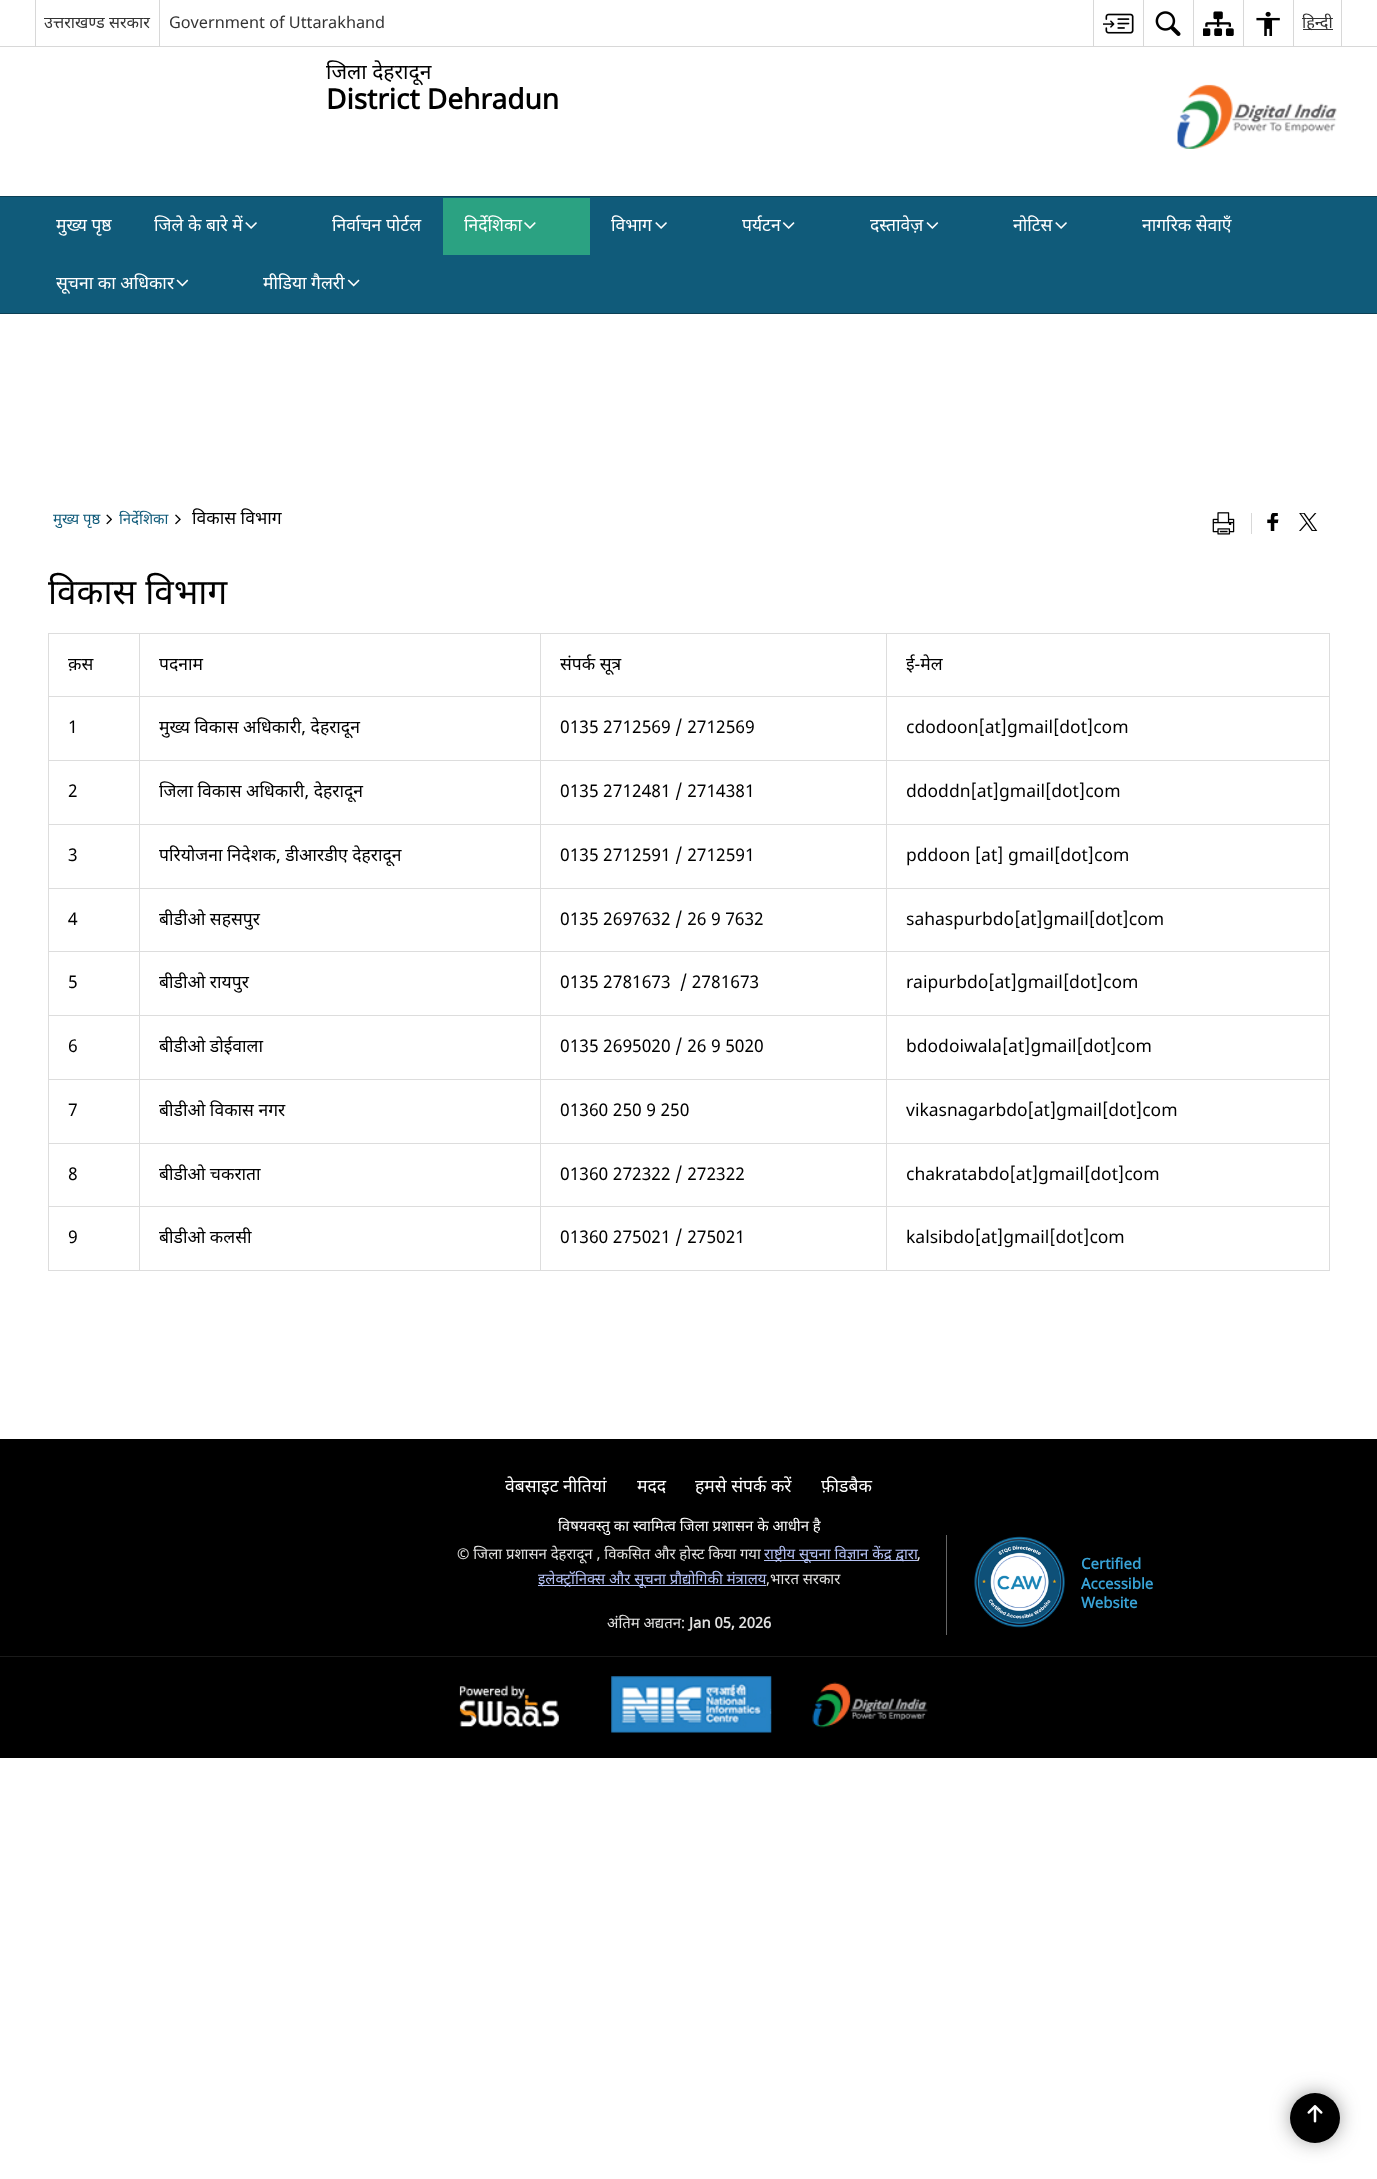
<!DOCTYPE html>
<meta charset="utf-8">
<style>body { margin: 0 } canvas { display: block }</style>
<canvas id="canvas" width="1377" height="2179"></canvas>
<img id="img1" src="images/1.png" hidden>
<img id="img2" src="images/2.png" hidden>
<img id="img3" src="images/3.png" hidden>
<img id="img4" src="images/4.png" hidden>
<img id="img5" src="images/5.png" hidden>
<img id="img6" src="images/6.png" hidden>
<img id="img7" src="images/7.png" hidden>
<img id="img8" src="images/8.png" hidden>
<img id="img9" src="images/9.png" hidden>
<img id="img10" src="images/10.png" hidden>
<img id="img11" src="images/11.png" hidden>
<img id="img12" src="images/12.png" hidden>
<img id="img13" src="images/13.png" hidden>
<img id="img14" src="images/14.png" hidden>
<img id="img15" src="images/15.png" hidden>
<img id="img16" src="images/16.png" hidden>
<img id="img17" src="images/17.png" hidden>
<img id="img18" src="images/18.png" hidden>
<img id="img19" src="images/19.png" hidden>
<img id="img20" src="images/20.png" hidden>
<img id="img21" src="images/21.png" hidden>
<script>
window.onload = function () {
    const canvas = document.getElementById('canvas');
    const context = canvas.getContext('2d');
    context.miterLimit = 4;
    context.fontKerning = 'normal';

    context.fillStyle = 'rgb(255, 255, 255)';
    context.fillRect(0, 0, 1377, 2179);
    context.fillStyle = 'rgb(216, 216, 216)';
    context.fillRect(0, 46, 1377, 1);
    context.fillRect(35, 0, 1, 46);
    context.fillRect(159, 0, 1, 46);
    context.fillRect(1093, 0, 1, 46);
    context.drawImage(document.getElementById('img1'), 1103, 13, 31, 21);
    context.fillRect(1143, 0, 1, 46);
    context.drawImage(document.getElementById('img2'), 1155, 11, 26, 25);
    context.fillRect(1193, 0, 1, 46);
    context.drawImage(document.getElementById('img3'), 1203, 11, 31, 25);
    context.fillRect(1243, 0, 1, 46);
    context.drawImage(document.getElementById('img4'), 1256, 11, 24, 25);
    context.fillRect(1341, 0, 1, 46);
    context.fillRect(1293, 0, 1, 46);
    context.fillStyle = 'rgb(51, 51, 51)';
    context.fillRect(1303, 29, 30, 1);
    context.drawImage(document.getElementById('img5'), 1177, 84, 160, 65);
    context.fillStyle = 'rgb(16, 91, 122)';
    context.fillRect(0, 197, 1377, 116);
    context.fillStyle = 'rgb(11, 64, 85)';
    context.fillRect(0, 196, 1377, 1);
    context.fillRect(0, 313, 1377, 1);
    context.drawImage(document.getElementById('img6'), 245, 222, 12, 7);
    context.fillStyle = 'rgb(43, 162, 130)';
    context.fillRect(443, 198, 147, 57);
    context.drawImage(document.getElementById('img7'), 524, 222, 12, 7);
    context.drawImage(document.getElementById('img6'), 655, 222, 12, 7);
    context.drawImage(document.getElementById('img8'), 782, 222, 13, 7);
    context.drawImage(document.getElementById('img9'), 926, 222, 13, 7);
    context.drawImage(document.getElementById('img6'), 1055, 222, 12, 7);
    context.drawImage(document.getElementById('img10'), 176, 279, 13, 8);
    context.drawImage(document.getElementById('img11'), 347, 279, 13, 8);
    context.drawImage(document.getElementById('img12'), 106, 514, 6, 11);
    context.drawImage(document.getElementById('img13'), 175, 514, 6, 11);
    context.drawImage(document.getElementById('img14'), 1212, 512, 23, 23);
    context.fillStyle = 'rgb(216, 216, 216)';
    context.fillRect(1251, 513, 1, 21);
    context.drawImage(document.getElementById('img15'), 1267, 513, 12, 18);
    context.drawImage(document.getElementById('img16'), 1299, 513, 19, 18);
    context.fillStyle = 'rgb(221, 221, 221)';
    context.fillRect(48, 633, 1282, 1);
    context.fillRect(1329, 633, 1, 638);
    context.fillRect(48, 1270, 1282, 1);
    context.fillRect(48, 633, 1, 638);
    context.fillRect(48, 696, 1282, 1);
    context.fillRect(48, 760, 1282, 1);
    context.fillRect(48, 824, 1282, 1);
    context.fillRect(48, 888, 1282, 1);
    context.fillRect(48, 951, 1282, 1);
    context.fillRect(48, 1015, 1282, 1);
    context.fillRect(48, 1079, 1282, 1);
    context.fillRect(48, 1143, 1282, 1);
    context.fillRect(48, 1206, 1282, 1);
    context.fillRect(139, 1206, 1, 65);
    context.fillRect(139, 1143, 1, 65);
    context.fillRect(139, 1079, 1, 65);
    context.fillRect(139, 1015, 1, 65);
    context.fillRect(139, 951, 1, 65);
    context.fillRect(139, 888, 1, 65);
    context.fillRect(139, 824, 1, 65);
    context.fillRect(139, 760, 1, 65);
    context.fillRect(139, 633, 1, 128);
    context.fillRect(540, 1206, 1, 65);
    context.fillRect(540, 1143, 1, 65);
    context.fillRect(540, 1079, 1, 65);
    context.fillRect(540, 1015, 1, 65);
    context.fillRect(540, 951, 1, 65);
    context.fillRect(540, 888, 1, 65);
    context.fillRect(540, 824, 1, 65);
    context.fillRect(540, 760, 1, 65);
    context.fillRect(540, 633, 1, 128);
    context.fillRect(886, 1206, 1, 65);
    context.fillRect(886, 1143, 1, 65);
    context.fillRect(886, 1079, 1, 65);
    context.fillRect(886, 1015, 1, 65);
    context.fillRect(886, 951, 1, 65);
    context.fillRect(886, 888, 1, 65);
    context.fillRect(886, 824, 1, 65);
    context.fillRect(886, 760, 1, 65);
    context.fillRect(886, 633, 1, 128);
    context.fillStyle = 'rgb(0, 0, 0)';
    context.fillRect(0, 1439, 1377, 319);
    context.fillStyle = 'rgb(180, 193, 245)';
    context.fillRect(764, 1560, 154, 1);
    context.fillRect(538, 1585, 228, 1);
    context.fillStyle = 'rgb(102, 102, 102)';
    context.fillRect(946, 1535, 1, 100);
    context.drawImage(document.getElementById('img17'), 974, 1536, 91, 92);
    context.fillStyle = 'rgb(26, 26, 26)';
    context.fillRect(0, 1656, 1377, 1);
    context.drawImage(document.getElementById('img18'), 459, 1685, 100, 42);
    context.drawImage(document.getElementById('img19'), 611, 1676, 161, 57);
    context.drawImage(document.getElementById('img20'), 812, 1682, 116, 46);
    context.fillStyle = 'rgb(60, 60, 60)';
    context.filter = 'blur(12px)';
    context.beginPath();
    context.roundRect(1296, 2099, 38, 37, 18.5);
    context.fill();
    context.filter = 'none';
    context.fillStyle = 'rgb(0, 0, 0)';
    context.beginPath();
    context.arc(1315, 2118, 25, 0, 2 * Math.PI);
    context.fill();
    context.drawImage(document.getElementById('img21'), 1307, 2105, 16, 18);
    context.font = '16.25px Noto Sans';
    context.fillStyle = 'rgb(51, 51, 51)';
    context.fillText('उत्तराखण्ड सरकार', 44, 28);
    context.font = '16.25px "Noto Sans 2"';
    context.fillText('Government of Uttarakhand', 169, 28);
    context.font = '16.25px Noto Sans';
    context.fillText('हिन्दी', 1302, 28);
    context.font = '21px Noto Sans';
    context.fillStyle = 'rgb(0, 0, 0)';
    context.fillText('जिला देहरादून', 326, 79);
    context.font = 'bold 28px Noto Sans';
    context.fillText('District Dehradun', 326, 109);
    context.font = '17.5px Noto Sans';
    context.fillStyle = 'rgb(255, 255, 255)';
    context.fillText('मुख्य पृष्ठ', 56, 231);
    context.fillText('जिले के बारे में', 154, 231);
    context.fillText('निर्वाचन पोर्टल', 332, 231);
    context.fillText('निर्देशिका', 464, 231);
    context.fillText('विभाग', 611, 231);
    context.fillText('पर्यटन', 742, 231);
    context.fillText('दस्तावेज़', 870, 231);
    context.fillText('नोटिस', 1013, 231);
    context.fillText('नागरिक सेवाएँ', 1142, 231);
    context.fillText('सूचना का अधिकार', 56, 289);
    context.fillText('मीडिया गैलरी', 263, 289);
    context.font = '14.9px Noto Sans';
    context.fillStyle = 'rgb(16, 91, 122)';
    context.fillText('मुख्य पृष्ठ', 53, 524);
    context.fillText('निर्देशिका', 119, 524);
    context.font = '17.5px Noto Sans';
    context.fillStyle = 'rgb(0, 0, 0)';
    context.fillText('विकास विभाग', 192, 524);
    context.font = '35px Noto Sans';
    context.fillText('विकास विभाग', 48, 604);
    context.font = '17.5px Noto Sans';
    context.fillText('क़स', 68, 670);
    context.fillText('पदनाम', 159, 670);
    context.fillText('संपर्क सूत्र', 560, 670);
    context.fillText('ई-मेल', 906, 670);
    context.font = '17.5px "Noto Sans 2"';
    context.fillText('1', 68, 733);
    context.font = '17.5px Noto Sans';
    context.fillText('मुख्य विकास अधिकारी, देहरादून', 159, 733);
    context.font = '17.5px "Noto Sans 2"';
    context.fillText('0135 2712569 / 2712569', 560, 733);
    context.fillText('cdodoon[at]gmail[dot]com', 906, 733);
    context.fillText('2', 68, 797);
    context.font = '17.5px Noto Sans';
    context.fillText('जिला विकास अधिकारी, देहरादून', 159, 797);
    context.font = '17.5px "Noto Sans 2"';
    context.fillText('0135 2712481 / 2714381', 560, 797);
    context.fillText('ddoddn[at]gmail[dot]com', 906, 797);
    context.fillText('3', 68, 861);
    context.font = '17.5px Noto Sans';
    context.fillText('परियोजना निदेशक, डीआरडीए देहरादून', 159, 861);
    context.font = '17.5px "Noto Sans 2"';
    context.fillText('0135 2712591 / 2712591', 560, 861);
    context.fillText('pddoon [at] gmail[dot]com', 906, 861);
    context.fillText('4', 68, 925);
    context.font = '17.5px Noto Sans';
    context.fillText('बीडीओ सहसपुर', 159, 925);
    context.font = '17.5px "Noto Sans 2"';
    context.fillText('0135 2697632 / 26 9 7632', 560, 925);
    context.fillText('sahaspurbdo[at]gmail[dot]com', 906, 925);
    context.fillText('5', 68, 988);
    context.font = '17.5px Noto Sans';
    context.fillText('बीडीओ रायपुर', 159, 988);
    context.font = '17.5px "Noto Sans 2"';
    context.fillText('0135 2781673  / 2781673', 560, 988);
    context.fillText('raipurbdo[at]gmail[dot]com', 906, 988);
    context.fillText('6', 68, 1052);
    context.font = '17.5px Noto Sans';
    context.fillText('बीडीओ डोईवाला', 159, 1052);
    context.font = '17.5px "Noto Sans 2"';
    context.fillText('0135 2695020 / 26 9 5020', 560, 1052);
    context.fillText('bdodoiwala[at]gmail[dot]com', 906, 1052);
    context.fillText('7', 68, 1116);
    context.font = '17.5px Noto Sans';
    context.fillText('बीडीओ विकास नगर', 159, 1116);
    context.font = '17.5px "Noto Sans 2"';
    context.fillText('01360 250 9 250', 560, 1116);
    context.fillText('vikasnagarbdo[at]gmail[dot]com', 906, 1116);
    context.fillText('8', 68, 1180);
    context.font = '17.5px Noto Sans';
    context.fillText('बीडीओ चकराता', 159, 1180);
    context.font = '17.5px "Noto Sans 2"';
    context.fillText('01360 272322 / 272322', 560, 1180);
    context.fillText('chakratabdo[at]gmail[dot]com', 906, 1180);
    context.fillText('9', 68, 1243);
    context.font = '17.5px Noto Sans';
    context.fillText('बीडीओ कलसी', 159, 1243);
    context.font = '17.5px "Noto Sans 2"';
    context.fillText('01360 275021 / 275021', 560, 1243);
    context.fillText('kalsibdo[at]gmail[dot]com', 906, 1243);
    context.font = '17.5px Noto Sans';
    context.fillStyle = 'rgb(255, 255, 255)';
    context.fillText('वेबसाइट नीतियां', 505, 1492);
    context.fillText('मदद', 637, 1492);
    context.fillText('हमसे संपर्क करें', 695, 1492);
    context.fillText('फ़ीडबैक', 821, 1492);
    context.font = '14.9px Noto Sans';
    context.fillText('विषयवस्तु का स्वामित्व जिला प्रशासन के आधीन है', 558, 1531);
    context.fillStyle = 'rgb(226, 226, 225)';
    context.fillText('© जिला प्रशासन देहरादून , विकसित और होस्ट किया गया', 457, 1559);
    context.fillStyle = 'rgb(180, 193, 245)';
    context.fillText('राष्ट्रीय सूचना विज्ञान केंद्र द्वारा', 764, 1559);
    context.font = '14.9px "Noto Sans 2"';
    context.fillStyle = 'rgb(226, 226, 225)';
    context.fillText(',', 917, 1559);
    context.font = '14.9px Noto Sans';
    context.fillStyle = 'rgb(180, 193, 245)';
    context.fillText('इलेक्ट्रॉनिक्स और सूचना प्रौद्योगिकी मंत्रालय', 538, 1584);
    context.fillStyle = 'rgb(226, 226, 225)';
    context.fillText(',भारत सरकार', 766, 1584);
    context.font = 'bold 15px Noto Sans';
    context.fillStyle = 'rgb(56, 163, 215)';
    context.fillText('Certified', 1081, 1569);
    context.fillText('Accessible', 1081, 1589);
    context.fillText('Website', 1081, 1608);
    context.font = '14.9px Noto Sans';
    context.fillStyle = 'rgb(226, 226, 225)';
    context.fillText('अंतिम अद्यतन:', 607, 1628);
    context.font = 'bold 14.9px Noto Sans';
    context.fillText('Jan 05, 2026', 689, 1628);
};
</script>
